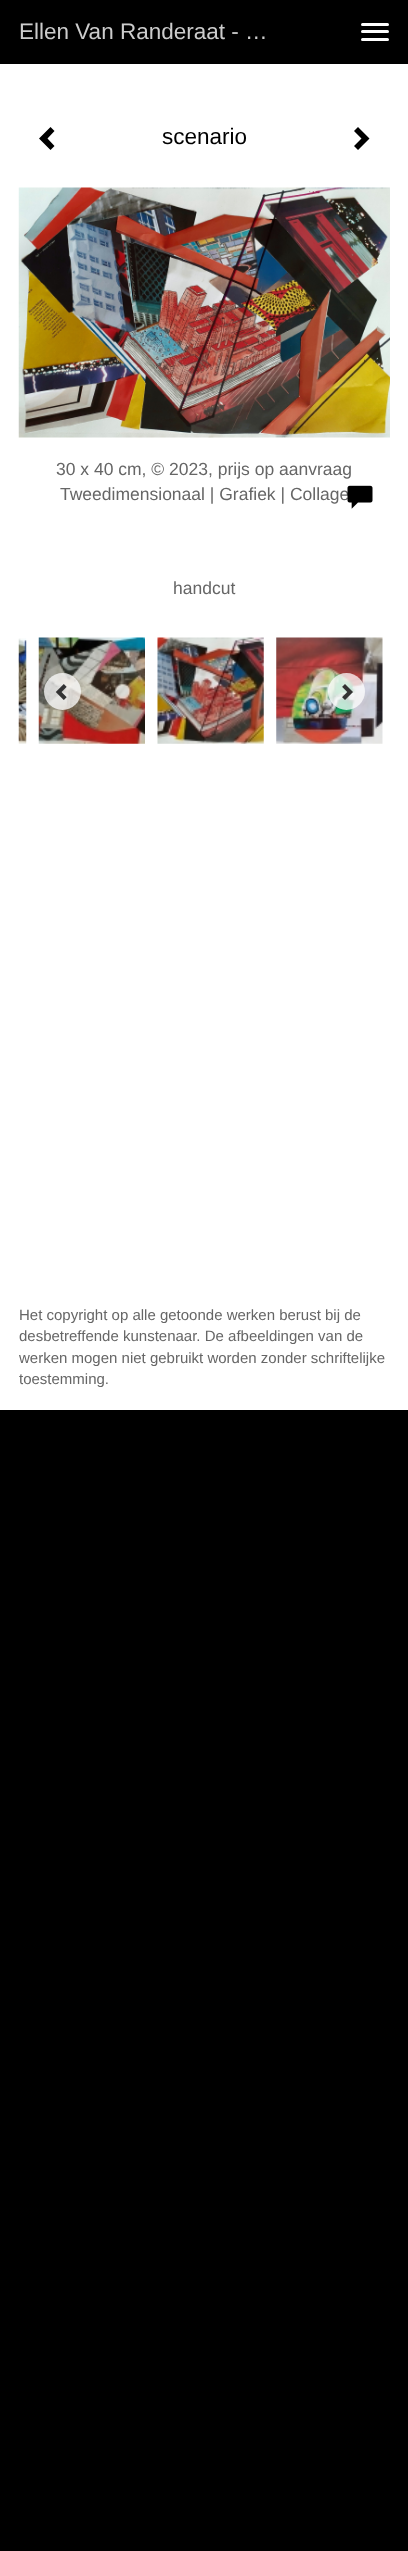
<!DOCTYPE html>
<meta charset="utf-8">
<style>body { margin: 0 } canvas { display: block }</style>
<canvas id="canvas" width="408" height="2551"></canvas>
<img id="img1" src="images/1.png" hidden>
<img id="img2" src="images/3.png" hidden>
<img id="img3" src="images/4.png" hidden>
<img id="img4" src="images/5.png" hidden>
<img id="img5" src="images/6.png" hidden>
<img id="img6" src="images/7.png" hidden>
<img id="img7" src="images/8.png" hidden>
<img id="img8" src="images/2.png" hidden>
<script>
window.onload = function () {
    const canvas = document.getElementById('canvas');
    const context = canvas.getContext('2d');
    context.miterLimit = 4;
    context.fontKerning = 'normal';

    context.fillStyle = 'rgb(0, 0, 0)';
    context.fillRect(0, 0, 408, 2551);
    context.fillStyle = 'rgb(255, 255, 255)';
    context.fillRect(0, 64, 408, 1346);
    context.beginPath();
    context.roundRect(361, 23, 28, 3, 1.5);
    context.fill();
    context.beginPath();
    context.roundRect(361, 30, 28, 3, 1.5);
    context.fill();
    context.beginPath();
    context.roundRect(361, 38, 28, 3, 1.5);
    context.fill();
    context.fillStyle = 'rgb(0, 0, 0)';
    context.beginPath();
    context.moveTo(54.5, 131);
    context.lineTo(47.5, 138.5);
    context.lineTo(54.5, 146);
    context.lineTo(50.5, 150);
    context.lineTo(39, 138.5);
    context.lineTo(50.5, 127);
    context.closePath();
    context.fill();
    context.beginPath();
    context.moveTo(369.5, 138.5);
    context.lineTo(358, 150);
    context.lineTo(354, 146);
    context.lineTo(361.5, 138.5);
    context.lineTo(354, 131);
    context.lineTo(358, 127);
    context.closePath();
    context.fill();
    context.drawImage(document.getElementById('img1'), 18, 187, 372, 251);
    context.drawImage(document.getElementById('img2'), 18, 638, 9, 106);
    context.drawImage(document.getElementById('img3'), 38, 637, 107, 107);
    context.drawImage(document.getElementById('img4'), 157, 637, 107, 107);
    context.drawImage(document.getElementById('img5'), 276, 637, 107, 107);
    context.fillStyle = 'rgba(255, 255, 255, 0.75)';
    context.beginPath();
    context.arc(62.5, 691.5, 18.5, 0, 2 * Math.PI);
    context.fill();
    context.drawImage(document.getElementById('img6'), 55, 684, 12, 16);
    context.beginPath();
    context.arc(346.5, 691.5, 18.5, 0, 2 * Math.PI);
    context.fill();
    context.drawImage(document.getElementById('img7'), 342, 684, 11, 16);
    context.font = '22.5px Liberation Sans';
    context.fillStyle = 'rgb(204, 204, 204)';
    context.fillText('Ellen Van Randeraat - …', 19, 39);
    context.fillStyle = 'rgb(0, 0, 0)';
    context.fillText('scenario', 162, 144);
    context.font = '17.5px Liberation Sans';
    context.fillStyle = 'rgb(102, 102, 102)';
    context.fillText('30 x 40 cm, © 2023, prijs op aanvraag', 56, 475);
    context.fillText('Tweedimensionaal | Grafiek | Collage', 60, 500);
    context.drawImage(document.getElementById('img8'), 347, 485, 26, 24);
    context.fillText('handcut', 173, 594);
    context.font = '15px Liberation Sans';
    context.fillText('Het copyright op alle getoonde werken berust bij de', 19, 1320);
    context.fillText('desbetreffende kunstenaar. De afbeeldingen van de', 19, 1341);
    context.fillText('werken mogen niet gebruikt worden zonder schriftelijke', 19, 1363);
    context.fillText('toestemming.', 19, 1384);
};
</script>
